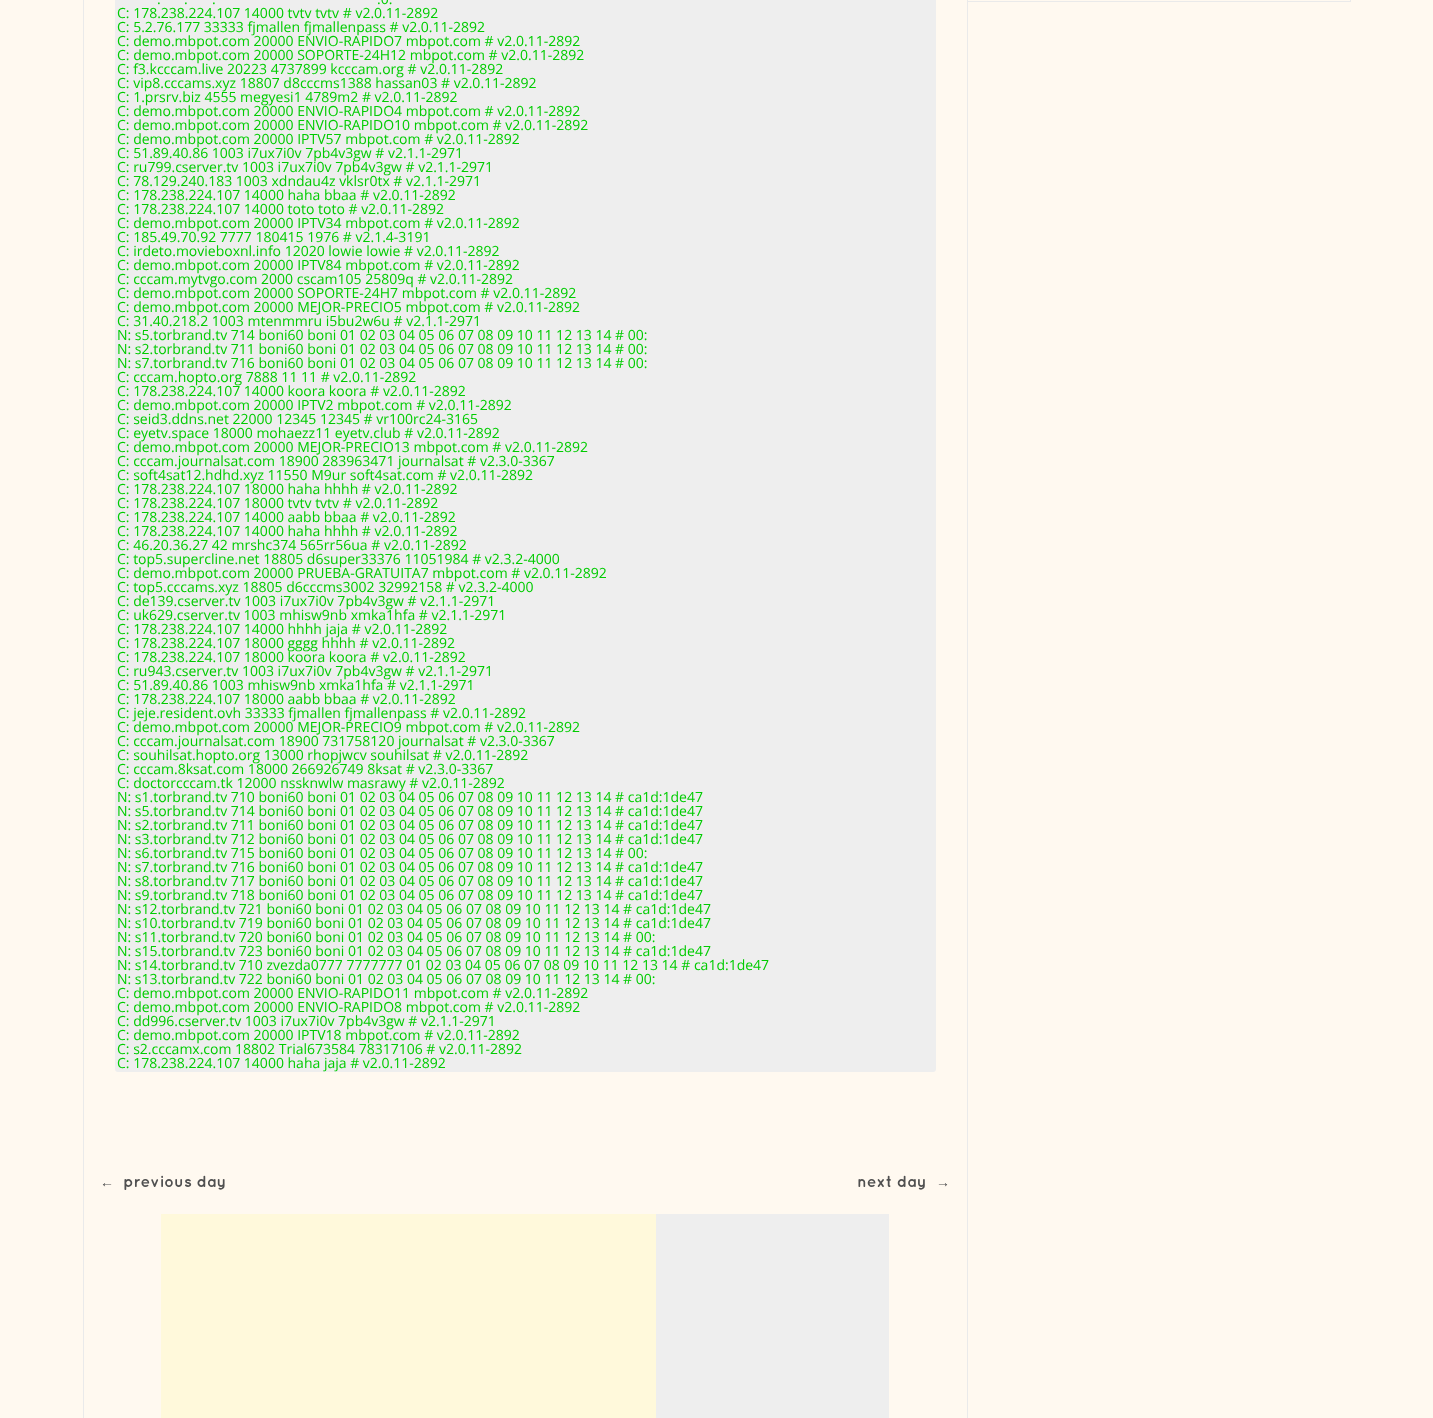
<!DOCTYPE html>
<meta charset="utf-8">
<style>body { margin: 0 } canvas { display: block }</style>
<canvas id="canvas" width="1433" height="1418"></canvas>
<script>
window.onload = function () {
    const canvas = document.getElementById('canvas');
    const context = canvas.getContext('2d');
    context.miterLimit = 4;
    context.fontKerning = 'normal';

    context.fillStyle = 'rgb(255, 249, 240)';
    context.fillRect(0, 0, 1433, 1418);
    context.fillStyle = 'rgb(234, 234, 234)';
    context.fillRect(967, 0, 1, 1418);
    context.fillRect(83, 0, 1, 1418);
    context.fillStyle = 'rgb(238, 238, 238)';
    context.beginPath();
    context.roundRect(116, -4, 819, 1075, 2);
    context.fill();
    context.strokeStyle = 'rgb(238, 238, 238)';
    context.lineWidth = 2;
    context.stroke();
    context.fillRect(656, 1214, 233, 204);
    context.fillStyle = 'rgb(255, 249, 219)';
    context.fillRect(161, 1214, 495, 204);
    context.fillStyle = 'rgb(234, 234, 234)';
    context.fillRect(1350, 0, 1, 2);
    context.fillRect(968, 1, 383, 1);
    context.font = '14px Open Sans';
    context.fillStyle = 'rgb(0, 204, 0)';
    context.fillText('.', 157, 4);
    context.fillText('.', 184, 4);
    context.fillText('.', 212, 4);
    context.fillText('.0.', 377, 4);
    context.fillText('C: 178.238.224.107 14000 tvtv tvtv # v2.0.11-2892', 117, 18);
    context.fillText('C: 5.2.76.177 33333 fjmallen fjmallenpass # v2.0.11-2892', 117, 32);
    context.fillText('C: demo.mbpot.com 20000 ENVIO-RAPIDO7 mbpot.com # v2.0.11-2892', 117, 46);
    context.fillText('C: demo.mbpot.com 20000 SOPORTE-24H12 mbpot.com # v2.0.11-2892', 117, 60);
    context.fillText('C: f3.kcccam.live 20223 4737899 kcccam.org # v2.0.11-2892', 117, 74);
    context.fillText('C: vip8.cccams.xyz 18807 d8cccms1388 hassan03 # v2.0.11-2892', 117, 88);
    context.fillText('C: 1.prsrv.biz 4555 megyesi1 4789m2 # v2.0.11-2892', 117, 102);
    context.fillText('C: demo.mbpot.com 20000 ENVIO-RAPIDO4 mbpot.com # v2.0.11-2892', 117, 116);
    context.fillText('C: demo.mbpot.com 20000 ENVIO-RAPIDO10 mbpot.com # v2.0.11-2892', 117, 130);
    context.fillText('C: demo.mbpot.com 20000 IPTV57 mbpot.com # v2.0.11-2892', 117, 144);
    context.fillText('C: 51.89.40.86 1003 i7ux7i0v 7pb4v3gw # v2.1.1-2971', 117, 158);
    context.fillText('C: ru799.cserver.tv 1003 i7ux7i0v 7pb4v3gw # v2.1.1-2971', 117, 172);
    context.fillText('C: 78.129.240.183 1003 xdndau4z vklsr0tx # v2.1.1-2971', 117, 186);
    context.fillText('C: 178.238.224.107 14000 haha bbaa # v2.0.11-2892', 117, 200);
    context.fillText('C: 178.238.224.107 14000 toto toto # v2.0.11-2892', 117, 214);
    context.fillText('C: demo.mbpot.com 20000 IPTV34 mbpot.com # v2.0.11-2892', 117, 228);
    context.fillText('C: 185.49.70.92 7777 180415 1976 # v2.1.4-3191', 117, 242);
    context.fillText('C: irdeto.movieboxnl.info 12020 lowie lowie # v2.0.11-2892', 117, 256);
    context.fillText('C: demo.mbpot.com 20000 IPTV84 mbpot.com # v2.0.11-2892', 117, 270);
    context.fillText('C: cccam.mytvgo.com 2000 cscam105 25809q # v2.0.11-2892', 117, 284);
    context.fillText('C: demo.mbpot.com 20000 SOPORTE-24H7 mbpot.com # v2.0.11-2892', 117, 298);
    context.fillText('C: demo.mbpot.com 20000 MEJOR-PRECIO5 mbpot.com # v2.0.11-2892', 117, 312);
    context.fillText('C: 31.40.218.2 1003 mtenmmru i5bu2w6u # v2.1.1-2971', 117, 326);
    context.fillText('N: s5.torbrand.tv 714 boni60 boni 01 02 03 04 05 06 07 08 09 10 11 12 13 14 # 00:', 117, 340);
    context.fillText('N: s2.torbrand.tv 711 boni60 boni 01 02 03 04 05 06 07 08 09 10 11 12 13 14 # 00:', 117, 354);
    context.fillText('N: s7.torbrand.tv 716 boni60 boni 01 02 03 04 05 06 07 08 09 10 11 12 13 14 # 00:', 117, 368);
    context.fillText('C: cccam.hopto.org 7888 11 11 # v2.0.11-2892', 117, 382);
    context.fillText('C: 178.238.224.107 14000 koora koora # v2.0.11-2892', 117, 396);
    context.fillText('C: demo.mbpot.com 20000 IPTV2 mbpot.com # v2.0.11-2892', 117, 410);
    context.fillText('C: seid3.ddns.net 22000 12345 12345 # vr100rc24-3165', 117, 424);
    context.fillText('C: eyetv.space 18000 mohaezz11 eyetv.club # v2.0.11-2892', 117, 438);
    context.fillText('C: demo.mbpot.com 20000 MEJOR-PRECIO13 mbpot.com # v2.0.11-2892', 117, 452);
    context.fillText('C: cccam.journalsat.com 18900 283963471 journalsat # v2.3.0-3367', 117, 466);
    context.fillText('C: soft4sat12.hdhd.xyz 11550 M9ur soft4sat.com # v2.0.11-2892', 117, 480);
    context.fillText('C: 178.238.224.107 18000 haha hhhh # v2.0.11-2892', 117, 494);
    context.fillText('C: 178.238.224.107 18000 tvtv tvtv # v2.0.11-2892', 117, 508);
    context.fillText('C: 178.238.224.107 14000 aabb bbaa # v2.0.11-2892', 117, 522);
    context.fillText('C: 178.238.224.107 14000 haha hhhh # v2.0.11-2892', 117, 536);
    context.fillText('C: 46.20.36.27 42 mrshc374 565rr56ua # v2.0.11-2892', 117, 550);
    context.fillText('C: top5.supercline.net 18805 d6super33376 11051984 # v2.3.2-4000', 117, 564);
    context.fillText('C: demo.mbpot.com 20000 PRUEBA-GRATUITA7 mbpot.com # v2.0.11-2892', 117, 578);
    context.fillText('C: top5.cccams.xyz 18805 d6cccms3002 32992158 # v2.3.2-4000', 117, 592);
    context.fillText('C: de139.cserver.tv 1003 i7ux7i0v 7pb4v3gw # v2.1.1-2971', 117, 606);
    context.fillText('C: uk629.cserver.tv 1003 mhisw9nb xmka1hfa # v2.1.1-2971', 117, 620);
    context.fillText('C: 178.238.224.107 14000 hhhh jaja # v2.0.11-2892', 117, 634);
    context.fillText('C: 178.238.224.107 18000 gggg hhhh # v2.0.11-2892', 117, 648);
    context.fillText('C: 178.238.224.107 18000 koora koora # v2.0.11-2892', 117, 662);
    context.fillText('C: ru943.cserver.tv 1003 i7ux7i0v 7pb4v3gw # v2.1.1-2971', 117, 676);
    context.fillText('C: 51.89.40.86 1003 mhisw9nb xmka1hfa # v2.1.1-2971', 117, 690);
    context.fillText('C: 178.238.224.107 18000 aabb bbaa # v2.0.11-2892', 117, 704);
    context.fillText('C: jeje.resident.ovh 33333 fjmallen fjmallenpass # v2.0.11-2892', 117, 718);
    context.fillText('C: demo.mbpot.com 20000 MEJOR-PRECIO9 mbpot.com # v2.0.11-2892', 117, 732);
    context.fillText('C: cccam.journalsat.com 18900 731758120 journalsat # v2.3.0-3367', 117, 746);
    context.fillText('C: souhilsat.hopto.org 13000 rhopjwcv souhilsat # v2.0.11-2892', 117, 760);
    context.fillText('C: cccam.8ksat.com 18000 266926749 8ksat # v2.3.0-3367', 117, 774);
    context.fillText('C: doctorcccam.tk 12000 nssknwlw masrawy # v2.0.11-2892', 117, 788);
    context.fillText('N: s1.torbrand.tv 710 boni60 boni 01 02 03 04 05 06 07 08 09 10 11 12 13 14 # ca1d:1de47', 117, 802);
    context.fillText('N: s5.torbrand.tv 714 boni60 boni 01 02 03 04 05 06 07 08 09 10 11 12 13 14 # ca1d:1de47', 117, 816);
    context.fillText('N: s2.torbrand.tv 711 boni60 boni 01 02 03 04 05 06 07 08 09 10 11 12 13 14 # ca1d:1de47', 117, 830);
    context.fillText('N: s3.torbrand.tv 712 boni60 boni 01 02 03 04 05 06 07 08 09 10 11 12 13 14 # ca1d:1de47', 117, 844);
    context.fillText('N: s6.torbrand.tv 715 boni60 boni 01 02 03 04 05 06 07 08 09 10 11 12 13 14 # 00:', 117, 858);
    context.fillText('N: s7.torbrand.tv 716 boni60 boni 01 02 03 04 05 06 07 08 09 10 11 12 13 14 # ca1d:1de47', 117, 872);
    context.fillText('N: s8.torbrand.tv 717 boni60 boni 01 02 03 04 05 06 07 08 09 10 11 12 13 14 # ca1d:1de47', 117, 886);
    context.fillText('N: s9.torbrand.tv 718 boni60 boni 01 02 03 04 05 06 07 08 09 10 11 12 13 14 # ca1d:1de47', 117, 900);
    context.fillText('N: s12.torbrand.tv 721 boni60 boni 01 02 03 04 05 06 07 08 09 10 11 12 13 14 # ca1d:1de47', 117, 914);
    context.fillText('N: s10.torbrand.tv 719 boni60 boni 01 02 03 04 05 06 07 08 09 10 11 12 13 14 # ca1d:1de47', 117, 928);
    context.fillText('N: s11.torbrand.tv 720 boni60 boni 01 02 03 04 05 06 07 08 09 10 11 12 13 14 # 00:', 117, 942);
    context.fillText('N: s15.torbrand.tv 723 boni60 boni 01 02 03 04 05 06 07 08 09 10 11 12 13 14 # ca1d:1de47', 117, 956);
    context.fillText('N: s14.torbrand.tv 710 zvezda0777 7777777 01 02 03 04 05 06 07 08 09 10 11 12 13 14 # ca1d:1de47', 117, 970);
    context.fillText('N: s13.torbrand.tv 722 boni60 boni 01 02 03 04 05 06 07 08 09 10 11 12 13 14 # 00:', 117, 984);
    context.fillText('C: demo.mbpot.com 20000 ENVIO-RAPIDO11 mbpot.com # v2.0.11-2892', 117, 998);
    context.fillText('C: demo.mbpot.com 20000 ENVIO-RAPIDO8 mbpot.com # v2.0.11-2892', 117, 1012);
    context.fillText('C: dd996.cserver.tv 1003 i7ux7i0v 7pb4v3gw # v2.1.1-2971', 117, 1026);
    context.fillText('C: demo.mbpot.com 20000 IPTV18 mbpot.com # v2.0.11-2892', 117, 1040);
    context.fillText('C: s2.cccamx.com 18802 Trial673584 78317106 # v2.0.11-2892', 117, 1054);
    context.fillText('C: 178.238.224.107 14000 haha jaja # v2.0.11-2892', 117, 1068);
    context.font = '14px Liberation Sans';
    context.fillStyle = 'rgb(80, 80, 80)';
    context.fillText('←', 100, 1187);
    context.font = 'bold 16px Quicksand';
    context.fillText('previous day', 123, 1187);
    context.fillText('next day', 857, 1187);
    context.font = '14px Liberation Sans';
    context.fillText('→', 936, 1187);
};
</script>
